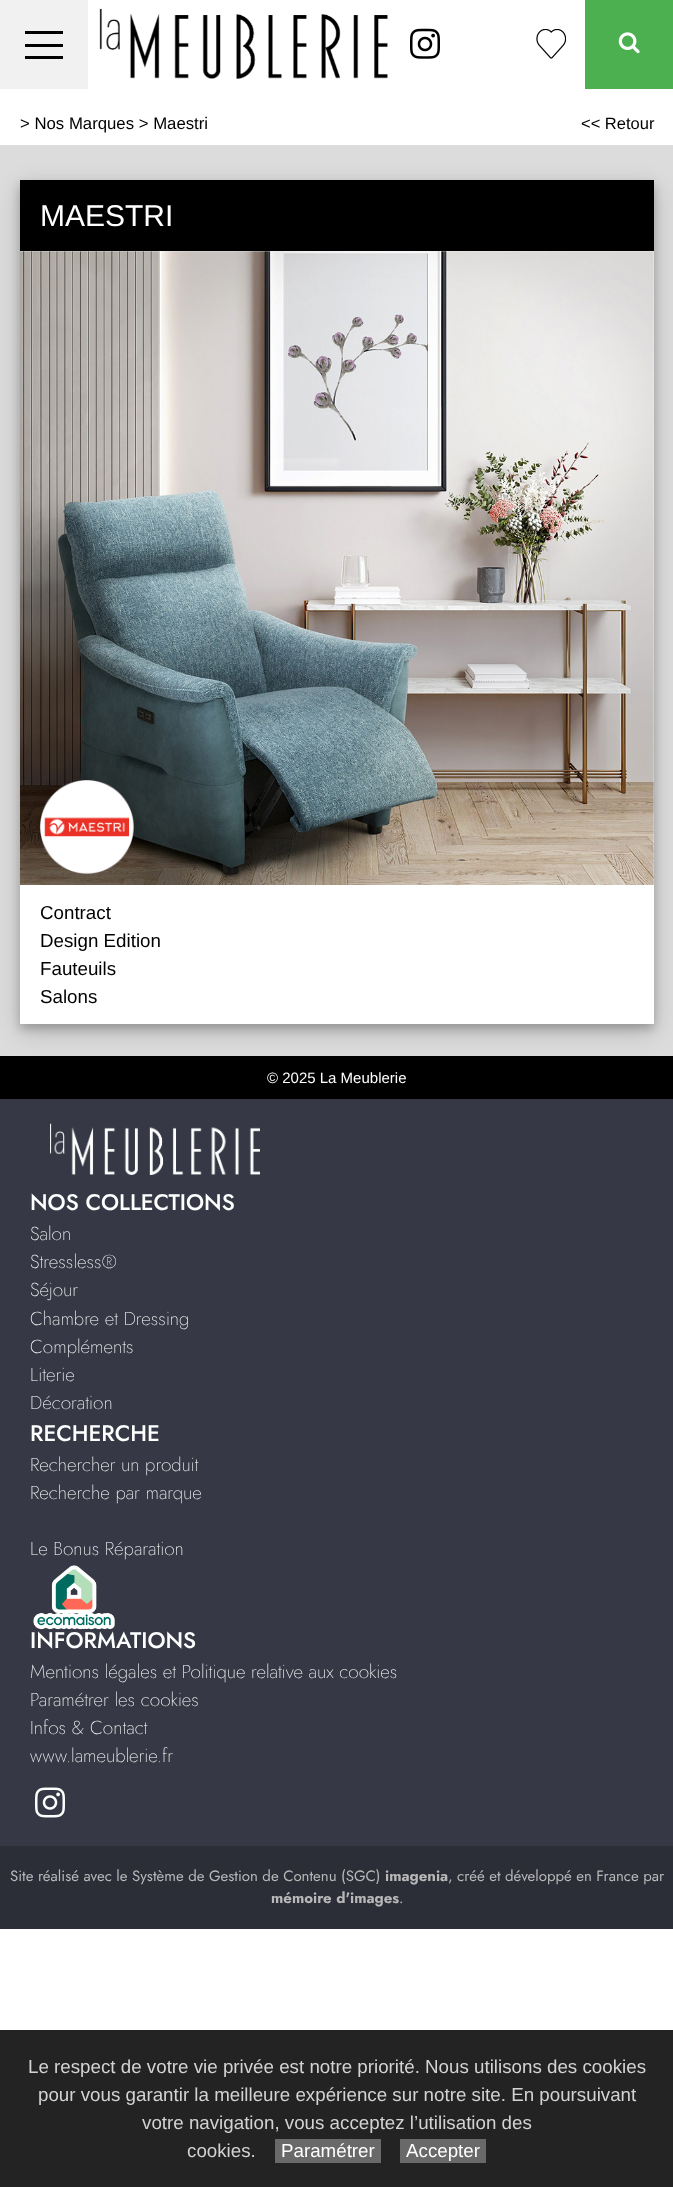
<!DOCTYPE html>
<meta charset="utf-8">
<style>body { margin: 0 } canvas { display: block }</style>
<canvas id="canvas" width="673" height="2187"></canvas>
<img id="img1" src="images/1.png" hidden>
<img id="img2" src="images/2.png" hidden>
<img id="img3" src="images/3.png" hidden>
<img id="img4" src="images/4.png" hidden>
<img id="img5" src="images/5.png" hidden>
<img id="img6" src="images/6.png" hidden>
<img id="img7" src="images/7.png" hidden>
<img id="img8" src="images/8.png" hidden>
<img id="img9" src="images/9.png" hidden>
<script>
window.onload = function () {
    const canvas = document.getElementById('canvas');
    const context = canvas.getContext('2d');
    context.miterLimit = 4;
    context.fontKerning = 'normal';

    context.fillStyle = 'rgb(255, 255, 255)';
    context.fillRect(0, 0, 673, 2187);
    context.fillStyle = 'rgb(241, 241, 241)';
    context.fillRect(0, 0, 88, 89);
    context.fillStyle = 'rgb(0, 0, 0)';
    context.fillRect(25, 31, 38, 3);
    context.fillRect(25, 44, 38, 3);
    context.fillRect(25, 56, 38, 3);
    context.drawImage(document.getElementById('img1'), 99, 8, 289, 71);
    context.drawImage(document.getElementById('img2'), 410, 28, 30, 31);
    context.drawImage(document.getElementById('img3'), 536, 29, 30, 30);
    context.fillStyle = 'rgb(76, 175, 80)';
    context.fillRect(585, 0, 88, 89);
    context.drawImage(document.getElementById('img4'), 618, 32, 22, 22);
    context.fillStyle = 'rgb(220, 220, 220)';
    context.fillRect(0, 145, 673, 911);
    context.fillStyle = 'rgb(0, 0, 0)';
    context.fillRect(0, 1056, 673, 43);
    context.fillStyle = 'rgba(0, 0, 0, 0.19)';
    context.filter = 'blur(12.5px)';
    context.beginPath();
    context.rect(20, 188, 634, 843);
    context.fill();
    context.filter = 'none';
    context.fillStyle = 'rgba(0, 0, 0, 0.2)';
    context.filter = 'blur(5px)';
    context.beginPath();
    context.rect(20, 185, 634, 844);
    context.fill();
    context.filter = 'none';
    context.fillStyle = 'rgb(0, 0, 0)';
    context.fillRect(20, 180, 634, 71);
    context.fillStyle = 'rgb(255, 255, 255)';
    context.fillRect(20, 251, 634, 773);
    context.drawImage(document.getElementById('img5'), 20, 251, 634, 634);
    context.drawImage(document.getElementById('img6'), 40, 780, 94, 94);
    context.fillStyle = 'rgb(54, 57, 69)';
    context.fillRect(0, 1099, 673, 747);
    context.drawImage(document.getElementById('img7'), 50, 1123, 210, 52);
    context.drawImage(document.getElementById('img8'), 33, 1565, 82, 65);
    context.drawImage(document.getElementById('img9'), 35, 1787, 30, 31);
    context.fillStyle = 'rgb(43, 45, 55)';
    context.fillRect(0, 1846, 673, 83);
    context.fillStyle = 'rgb(35, 35, 35)';
    context.fillRect(0, 2030, 673, 157);
    context.fillStyle = 'rgb(105, 105, 105)';
    context.fillRect(275, 2139, 106, 24);
    context.fillRect(400, 2139, 86, 24);
    context.font = '16.75px Liberation Sans';
    context.fillStyle = 'rgb(0, 0, 0)';
    context.fillText('> Nos Marques > Maestri', 20, 129);
    context.font = '16.5px Liberation Sans';
    context.fillText('<< Retour', 581, 129);
    context.font = '30px Liberation Sans';
    context.fillStyle = 'rgb(255, 255, 255)';
    context.fillText('MAESTRI', 40, 226);
    context.font = '18.75px Liberation Sans';
    context.fillStyle = 'rgb(0, 0, 0)';
    context.fillText('Contract', 40, 919);
    context.fillText('Design Edition', 40, 947);
    context.fillText('Fauteuils', 40, 975);
    context.fillText('Salons', 40, 1003);
    context.font = '15px Liberation Sans';
    context.fillStyle = 'rgb(255, 255, 255)';
    context.fillText('© 2025 La Meublerie', 267, 1083);
    context.font = '500 22.5px Jost';
    context.fillText('NOS COLLECTIONS', 30, 1210);
    context.font = '200 18.75px Jost';
    context.fillText('Salon', 30, 1240);
    context.fillText('Stressless®', 30, 1268);
    context.fillText('Séjour', 30, 1296);
    context.fillText('Chambre et Dressing', 30, 1325);
    context.fillText('Compléments', 30, 1353);
    context.fillText('Literie', 30, 1381);
    context.fillText('Décoration', 30, 1409);
    context.font = '500 22.5px Jost';
    context.fillText('RECHERCHE', 30, 1441);
    context.font = '200 18.75px Jost';
    context.fillText('Rechercher un produit', 30, 1471);
    context.fillText('Recherche par marque', 30, 1499);
    context.fillText('Le Bonus Réparation', 30, 1555);
    context.font = '500 22.5px Jost';
    context.fillText('INFORMATIONS', 30, 1648);
    context.font = '200 18.75px Jost';
    context.fillText('Mentions légales et Politique relative aux cookies', 30, 1678);
    context.fillText('Paramétrer les cookies', 30, 1706);
    context.fillText('Infos & Contact', 30, 1734);
    context.fillText('www.lameublerie.fr', 30, 1762);
    context.font = '15px Jost';
    context.fillStyle = 'rgb(184, 184, 184)';
    context.fillText('Site réalisé avec le Système de Gestion de Contenu (SGC)', 10, 1881);
    context.font = 'bold 15px Jost';
    context.fillText('imagenia', 385, 1881);
    context.font = '15px Jost';
    context.fillText(', créé et développé en France par', 448, 1881);
    context.font = 'bold 15px Jost';
    context.fillText('mémoire d\'images', 271, 1903);
    context.font = '15px Jost';
    context.fillText('.', 399, 1903);
    context.font = '18.75px Liberation Sans';
    context.fillStyle = 'rgb(211, 211, 211)';
    context.fillText('Le respect de votre vie privée est notre priorité. Nous utilisons des cookies', 28, 2073);
    context.fillText('pour vous garantir la meilleure expérience sur notre site. En poursuivant', 38, 2101);
    context.fillText('votre navigation, vous acceptez l’utilisation des', 142, 2129);
    context.fillText('cookies.', 187, 2157);
    context.fillStyle = 'rgb(255, 255, 255)';
    context.fillText('Paramétrer', 281, 2157);
    context.fillText('Accepter', 406, 2157);
};
</script>
